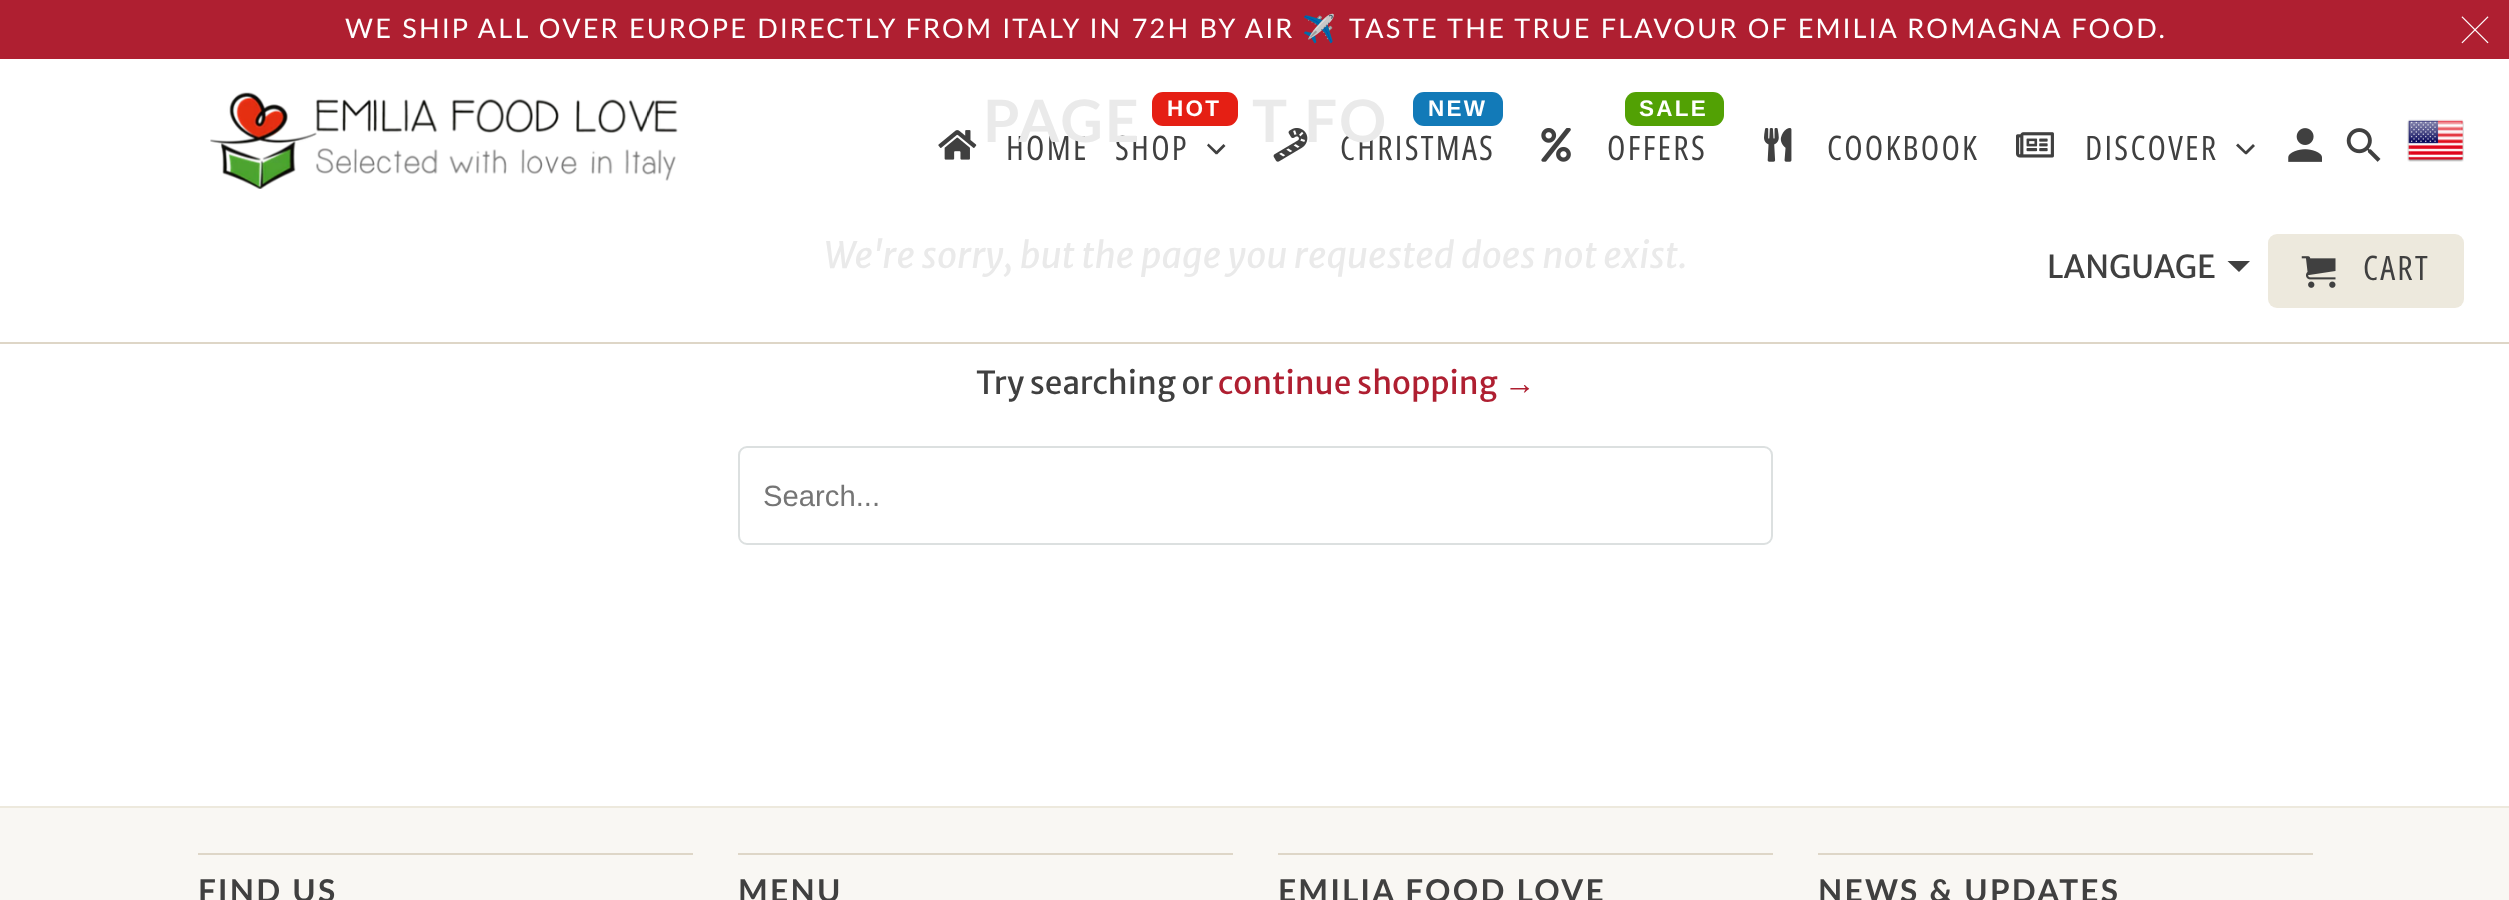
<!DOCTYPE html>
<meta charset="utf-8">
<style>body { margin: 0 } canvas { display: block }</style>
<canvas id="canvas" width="2509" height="900"></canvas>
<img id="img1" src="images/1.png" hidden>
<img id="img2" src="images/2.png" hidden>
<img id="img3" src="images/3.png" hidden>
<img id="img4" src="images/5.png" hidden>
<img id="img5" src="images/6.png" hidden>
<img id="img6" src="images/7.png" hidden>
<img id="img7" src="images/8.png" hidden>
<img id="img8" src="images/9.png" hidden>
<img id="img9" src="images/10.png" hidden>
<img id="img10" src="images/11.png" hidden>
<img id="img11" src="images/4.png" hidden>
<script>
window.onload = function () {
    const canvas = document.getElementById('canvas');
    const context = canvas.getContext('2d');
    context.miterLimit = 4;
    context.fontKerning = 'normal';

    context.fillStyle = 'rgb(255, 255, 255)';
    context.fillRect(0, 0, 2509, 900);
    context.fillStyle = 'rgb(222, 214, 199)';
    context.fillRect(0, 342, 2509, 2);
    context.fillStyle = 'rgb(175, 31, 49)';
    context.fillRect(0, 0, 2509, 59);
    context.drawImage(document.getElementById('img1'), 2461, 16, 28, 28);
    context.drawImage(document.getElementById('img2'), 210, 92, 468, 97);
    context.drawImage(document.getElementById('img3'), 938, 130, 39, 30);
    context.fillStyle = 'rgb(229, 31, 20)';
    context.beginPath();
    context.roundRect(1152, 92, 86, 34, 11);
    context.fill();
    context.fillStyle = 'rgb(64, 64, 64)';
    context.beginPath();
    context.moveTo(1223.5, 144);
    context.lineTo(1225.5, 146);
    context.lineTo(1217, 154.5);
    context.lineTo(1215, 152.5);
    context.closePath();
    context.fill();
    context.beginPath();
    context.moveTo(1208.5, 143.5);
    context.lineTo(1218, 152.5);
    context.lineTo(1216, 154.5);
    context.lineTo(1207, 145.5);
    context.closePath();
    context.fill();
    context.fillStyle = 'rgb(18, 122, 184)';
    context.beginPath();
    context.roundRect(1413, 92, 90, 34, 11);
    context.fill();
    context.fillStyle = 'rgb(82, 161, 4)';
    context.beginPath();
    context.roundRect(1625, 92, 99, 34, 11);
    context.fill();
    context.drawImage(document.getElementById('img4'), 1541, 128, 30, 34);
    context.drawImage(document.getElementById('img5'), 1764, 128, 28, 34);
    context.drawImage(document.getElementById('img6'), 2016, 132, 38, 26);
    context.fillStyle = 'rgb(64, 64, 64)';
    context.beginPath();
    context.moveTo(2253, 144);
    context.lineTo(2255, 146);
    context.lineTo(2246.5, 154.5);
    context.lineTo(2244.5, 152.5);
    context.closePath();
    context.fill();
    context.beginPath();
    context.moveTo(2238, 143.5);
    context.lineTo(2247, 152.5);
    context.lineTo(2245.5, 154.5);
    context.lineTo(2236, 145.5);
    context.closePath();
    context.fill();
    context.drawImage(document.getElementById('img7'), 2288, 128, 34, 34);
    context.drawImage(document.getElementById('img8'), 2346, 128, 35, 34);
    context.drawImage(document.getElementById('img9'), 2407, 119, 57, 43);
    context.beginPath();
    context.moveTo(2227.5, 261);
    context.lineTo(2250, 261);
    context.lineTo(2239, 272);
    context.closePath();
    context.fill();
    context.fillStyle = 'rgb(237, 233, 221)';
    context.beginPath();
    context.roundRect(2268, 234, 196, 74, 9);
    context.fill();
    context.drawImage(document.getElementById('img10'), 2301, 256, 35, 32);
    context.beginPath();
    context.roundRect(739, 447, 1033, 97, 8);
    context.strokeStyle = 'rgb(220, 224, 224)';
    context.lineWidth = 2;
    context.stroke();
    context.fillStyle = 'rgb(249, 247, 243)';
    context.fillRect(0, 808, 2509, 92);
    context.fillStyle = 'rgb(237, 233, 221)';
    context.fillRect(0, 806, 2509, 2);
    context.fillStyle = 'rgb(222, 214, 199)';
    context.fillRect(198, 853, 495, 2);
    context.fillRect(738, 853, 495, 2);
    context.fillRect(1278, 853, 495, 2);
    context.fillRect(1818, 853, 495, 2);
    context.letterSpacing = '2.25px';
    context.font = '27px Lato';
    context.fillStyle = 'rgb(255, 255, 255)';
    context.fillText('WE SHIP ALL OVER EUROPE DIRECTLY FROM ITALY IN 72H BY AIR', 345, 38);
    context.font = '27px Noto Color Emoji';
    context.fillText('✈️', 1302, 38);
    context.font = '27px Lato';
    context.fillText('TASTE THE TRUE FLAVOUR OF EMILIA ROMAGNA FOOD.', 1349, 38);
    context.font = '33.75px Open Sans Condensed';
    context.fillStyle = 'rgb(64, 64, 64)';
    context.fillText('HOME', 1006, 160);
    context.font = 'bold 22.5px Liberation Sans';
    context.fillStyle = 'rgb(255, 255, 255)';
    context.fillText('HOT', 1167, 116);
    context.font = '33.75px Open Sans Condensed';
    context.fillStyle = 'rgb(64, 64, 64)';
    context.fillText('SHOP', 1115, 160);
    context.font = 'bold 22.5px Liberation Sans';
    context.fillStyle = 'rgb(255, 255, 255)';
    context.fillText('NEW', 1428, 116);
    context.font = '33.75px Open Sans Condensed';
    context.fillStyle = 'rgb(64, 64, 64)';
    context.fillText('CHRISTMAS', 1340, 160);
    context.font = 'bold 22.5px Liberation Sans';
    context.fillStyle = 'rgb(255, 255, 255)';
    context.fillText('SALE', 1639, 116);
    context.font = '33.75px Open Sans Condensed';
    context.fillStyle = 'rgb(64, 64, 64)';
    context.fillText('OFFERS', 1607, 160);
    context.fillText('COOKBOOK', 1827, 160);
    context.fillText('DISCOVER', 2085, 160);
    context.letterSpacing = '0px';
    context.font = '31.5px Merriweather Sans';
    context.fillText('LANGUAGE', 2047, 278);
    context.letterSpacing = '2.25px';
    context.font = '33.75px Open Sans Condensed';
    context.fillText('CART', 2363, 280);
    context.font = 'bold 58.5px Lato';
    context.fillStyle = 'rgb(234, 234, 234)';
    context.fillText('PAGE', 983, 142);
    context.fillText('T FO', 1252, 142);
    context.drawImage(document.getElementById('img11'), 1273, 128, 35, 34);
    context.letterSpacing = '0px';
    context.font = 'italic 36px Merriweather Sans';
    context.fillText('We\'re sorry, but the page you requested does not exist.', 824, 268);
    context.font = '31.5px Merriweather Sans';
    context.fillStyle = 'rgb(64, 64, 64)';
    context.fillText('Try searching or', 976, 394);
    context.fillStyle = 'rgb(175, 31, 49)';
    context.fillText('continue shopping', 1218, 394);
    context.font = '31.5px Liberation Sans';
    context.fillText('→', 1504, 394);
    context.font = '29.25px Liberation Sans';
    context.fillStyle = 'rgb(117, 117, 117)';
    context.fillText('Search...', 763, 506);
    context.letterSpacing = '2.25px';
    context.font = 'bold 31.5px Lato';
    context.fillStyle = 'rgb(64, 64, 64)';
    context.fillText('FIND US', 198, 902);
    context.fillText('MENU', 738, 902);
    context.fillText('EMILIA FOOD LOVE', 1278, 902);
    context.fillText('NEWS & UPDATES', 1818, 902);
};
</script>
